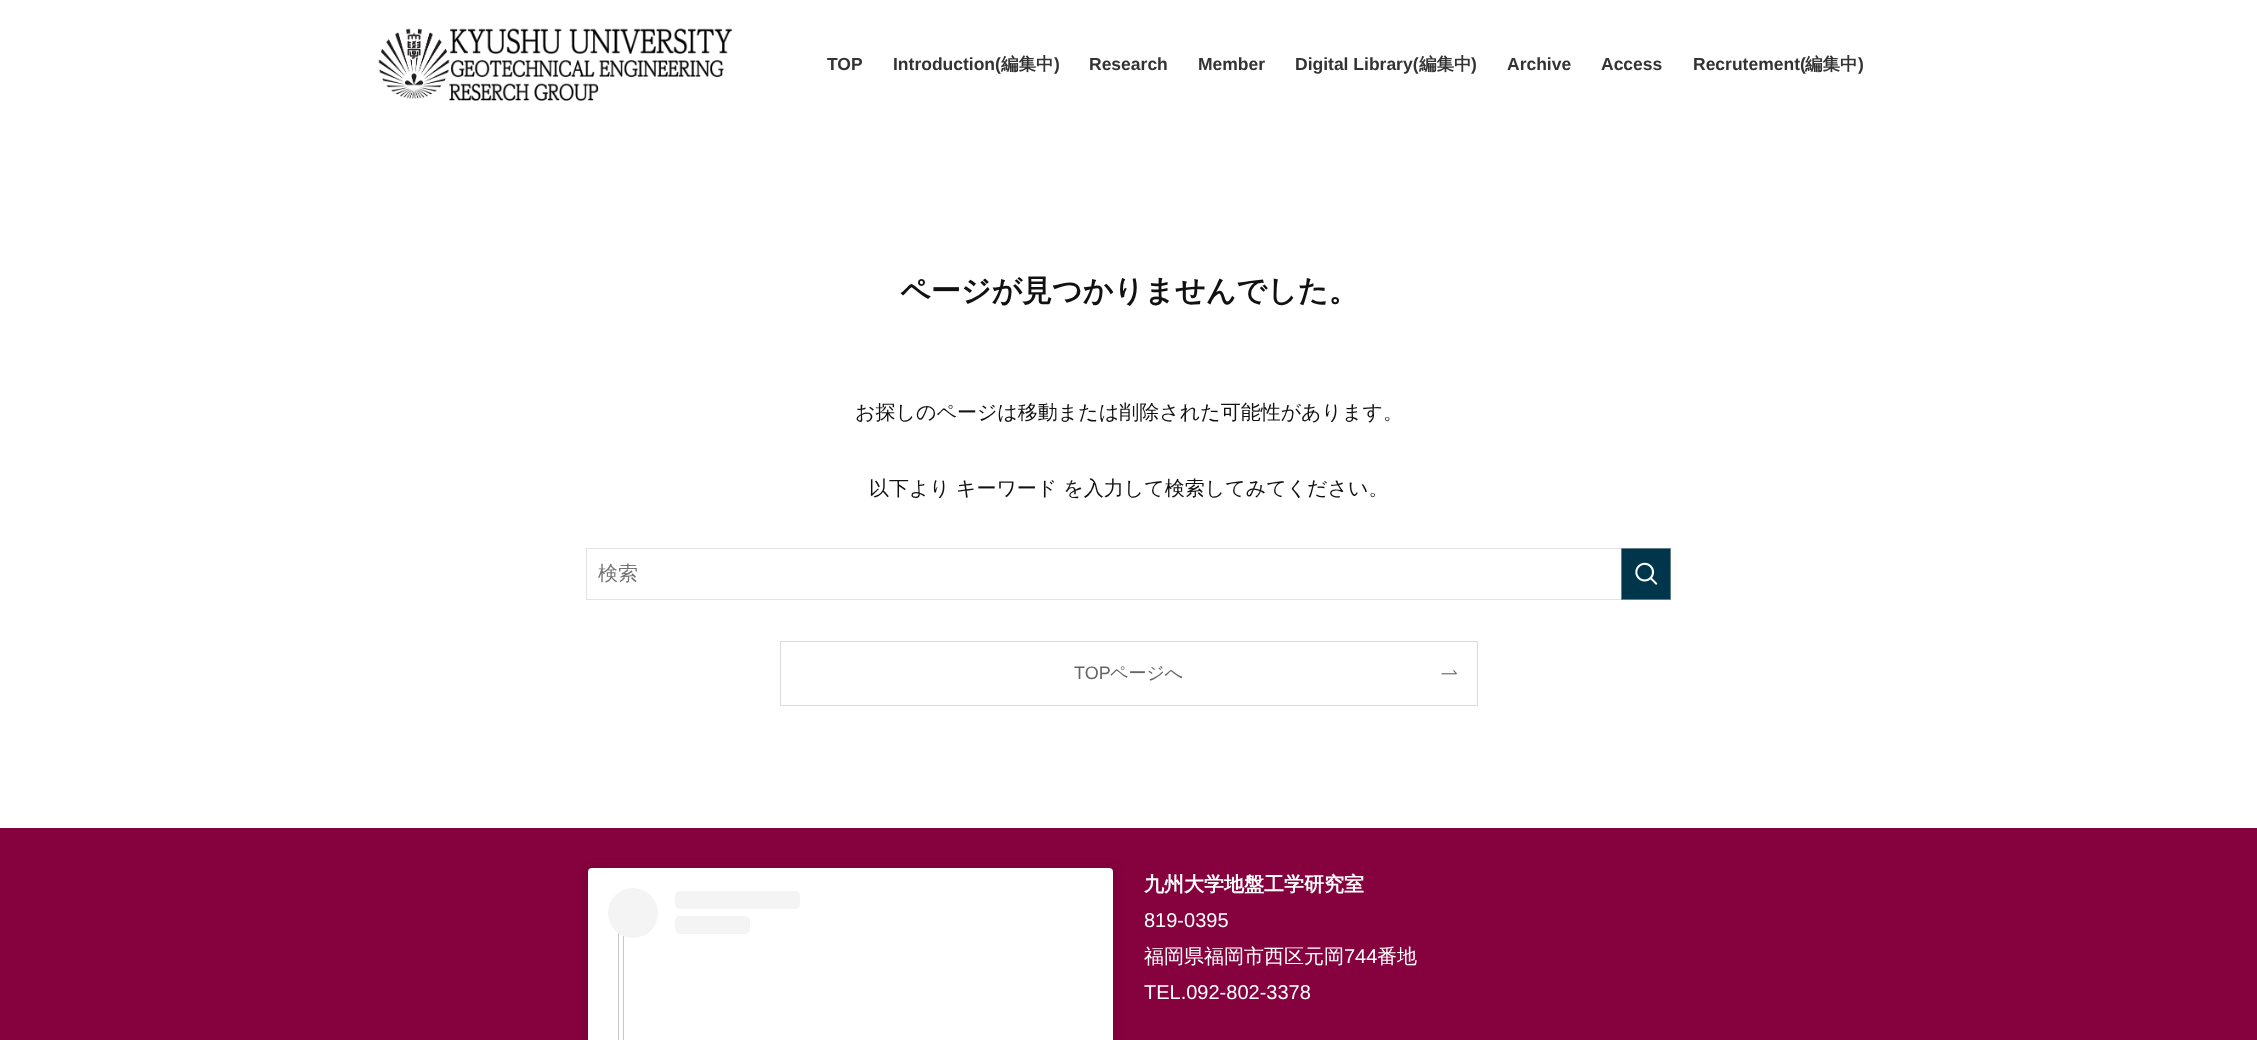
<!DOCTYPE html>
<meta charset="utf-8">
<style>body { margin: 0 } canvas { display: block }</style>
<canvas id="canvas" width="2257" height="1040"></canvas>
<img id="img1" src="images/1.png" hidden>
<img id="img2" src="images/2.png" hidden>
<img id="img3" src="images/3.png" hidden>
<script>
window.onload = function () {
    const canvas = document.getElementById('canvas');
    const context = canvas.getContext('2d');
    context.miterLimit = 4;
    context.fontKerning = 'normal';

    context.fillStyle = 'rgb(255, 255, 255)';
    context.fillRect(0, 0, 2257, 1040);
    context.drawImage(document.getElementById('img1'), 378, 28, 355, 73);
    context.strokeStyle = 'rgb(227, 227, 227)';
    context.strokeRect(586.5, 548.5, 1084, 51);
    context.fillStyle = 'rgb(0, 54, 76)';
    context.beginPath();
    context.rect(1621.5, 548.5, 49, 51);
    context.fill();
    context.strokeStyle = 'rgb(100, 127, 138)';
    context.stroke();
    context.drawImage(document.getElementById('img2'), 1635, 562, 23, 23);
    context.strokeStyle = 'rgb(220, 220, 220)';
    context.strokeRect(780.5, 641.5, 697, 64);
    context.drawImage(document.getElementById('img3'), 1441, 670, 16, 5);
    context.fillStyle = 'rgb(133, 2, 62)';
    context.fillRect(0, 828, 2257, 212);
    context.fillStyle = 'rgba(0, 0, 0, 0.15)';
    context.filter = 'blur(6px)';
    context.beginPath();
    context.roundRect(588, 869, 525, 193, 4);
    context.fill();
    context.filter = 'none';
    context.fillStyle = 'rgba(0, 0, 0, 0.5)';
    context.filter = 'blur(0.5px)';
    context.beginPath();
    context.roundRect(588, 868, 525, 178, 4);
    context.fill();
    context.filter = 'none';
    context.fillStyle = 'rgb(255, 255, 255)';
    context.beginPath();
    context.roundRect(588, 868, 525, 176, 4);
    context.fill();
    context.fillStyle = 'rgb(199, 199, 199)';
    context.fillRect(623, 935, 1, 105);
    context.fillRect(618, 933, 1, 107);
    context.fillStyle = 'rgb(244, 244, 244)';
    context.beginPath();
    context.arc(633, 913, 25, 0, 2 * Math.PI);
    context.fill();
    context.beginPath();
    context.roundRect(675, 891, 125, 18, 5);
    context.fill();
    context.beginPath();
    context.roundRect(675, 916, 75, 18, 5);
    context.fill();
    context.font = 'bold 17.5px Liberation Sans';
    context.fillStyle = 'rgb(51, 51, 51)';
    context.fillText('TOP', 827, 70);
    context.fillText('Introduction(', 893, 70);
    context.font = 'bold 17.5px WenQuanYi Zen Hei';
    context.fillText('編集中', 1001, 70);
    context.font = 'bold 17.5px Liberation Sans';
    context.fillText(')', 1054, 70);
    context.fillText('Research', 1089, 70);
    context.fillText('Member', 1198, 70);
    context.fillText('Digital Library(', 1295, 70);
    context.font = 'bold 17.5px WenQuanYi Zen Hei';
    context.fillText('編集中', 1419, 70);
    context.font = 'bold 17.5px Liberation Sans';
    context.fillText(')', 1471, 70);
    context.fillText('Archive', 1507, 70);
    context.fillText('Access', 1601, 70);
    context.fillText('Recrutement(', 1693, 70);
    context.font = 'bold 17.5px WenQuanYi Zen Hei';
    context.fillText('編集中', 1805, 70);
    context.font = 'bold 17.5px Liberation Sans';
    context.fillText(')', 1858, 70);
    context.font = 'bold 30px WenQuanYi Zen Hei';
    context.fillStyle = 'rgb(17, 17, 17)';
    context.fillText('ページが見つかりませんでした。', 900, 301);
    context.font = '500 20px WenQuanYi Zen Hei';
    context.fillText('お探しのページは移動または削除された可能性があります。', 855, 419);
    context.fillText('以下より キーワード を入力して検索してみてください。', 869, 495);
    context.fillStyle = 'rgb(117, 117, 117)';
    context.fillText('検索', 598, 580);
    context.font = '18px Liberation Sans';
    context.fillStyle = 'rgb(102, 102, 102)';
    context.fillText('TOP', 1074, 679);
    context.font = '500 18px WenQuanYi Zen Hei';
    context.fillText('ページへ', 1110, 679);
    context.font = 'bold 20px WenQuanYi Zen Hei';
    context.fillStyle = 'rgb(255, 255, 255)';
    context.fillText('九州大学地盤工学研究室', 1144, 891);
    context.font = '20px Liberation Sans';
    context.fillText('819-0395', 1144, 927);
    context.font = '500 20px WenQuanYi Zen Hei';
    context.fillText('福岡県福岡市西区元岡', 1144, 963);
    context.font = '20px Liberation Sans';
    context.fillText('744', 1344, 963);
    context.font = '500 20px WenQuanYi Zen Hei';
    context.fillText('番地', 1377, 963);
    context.font = '20px Liberation Sans';
    context.fillText('TEL.092-802-3378', 1144, 999);
};
</script>
